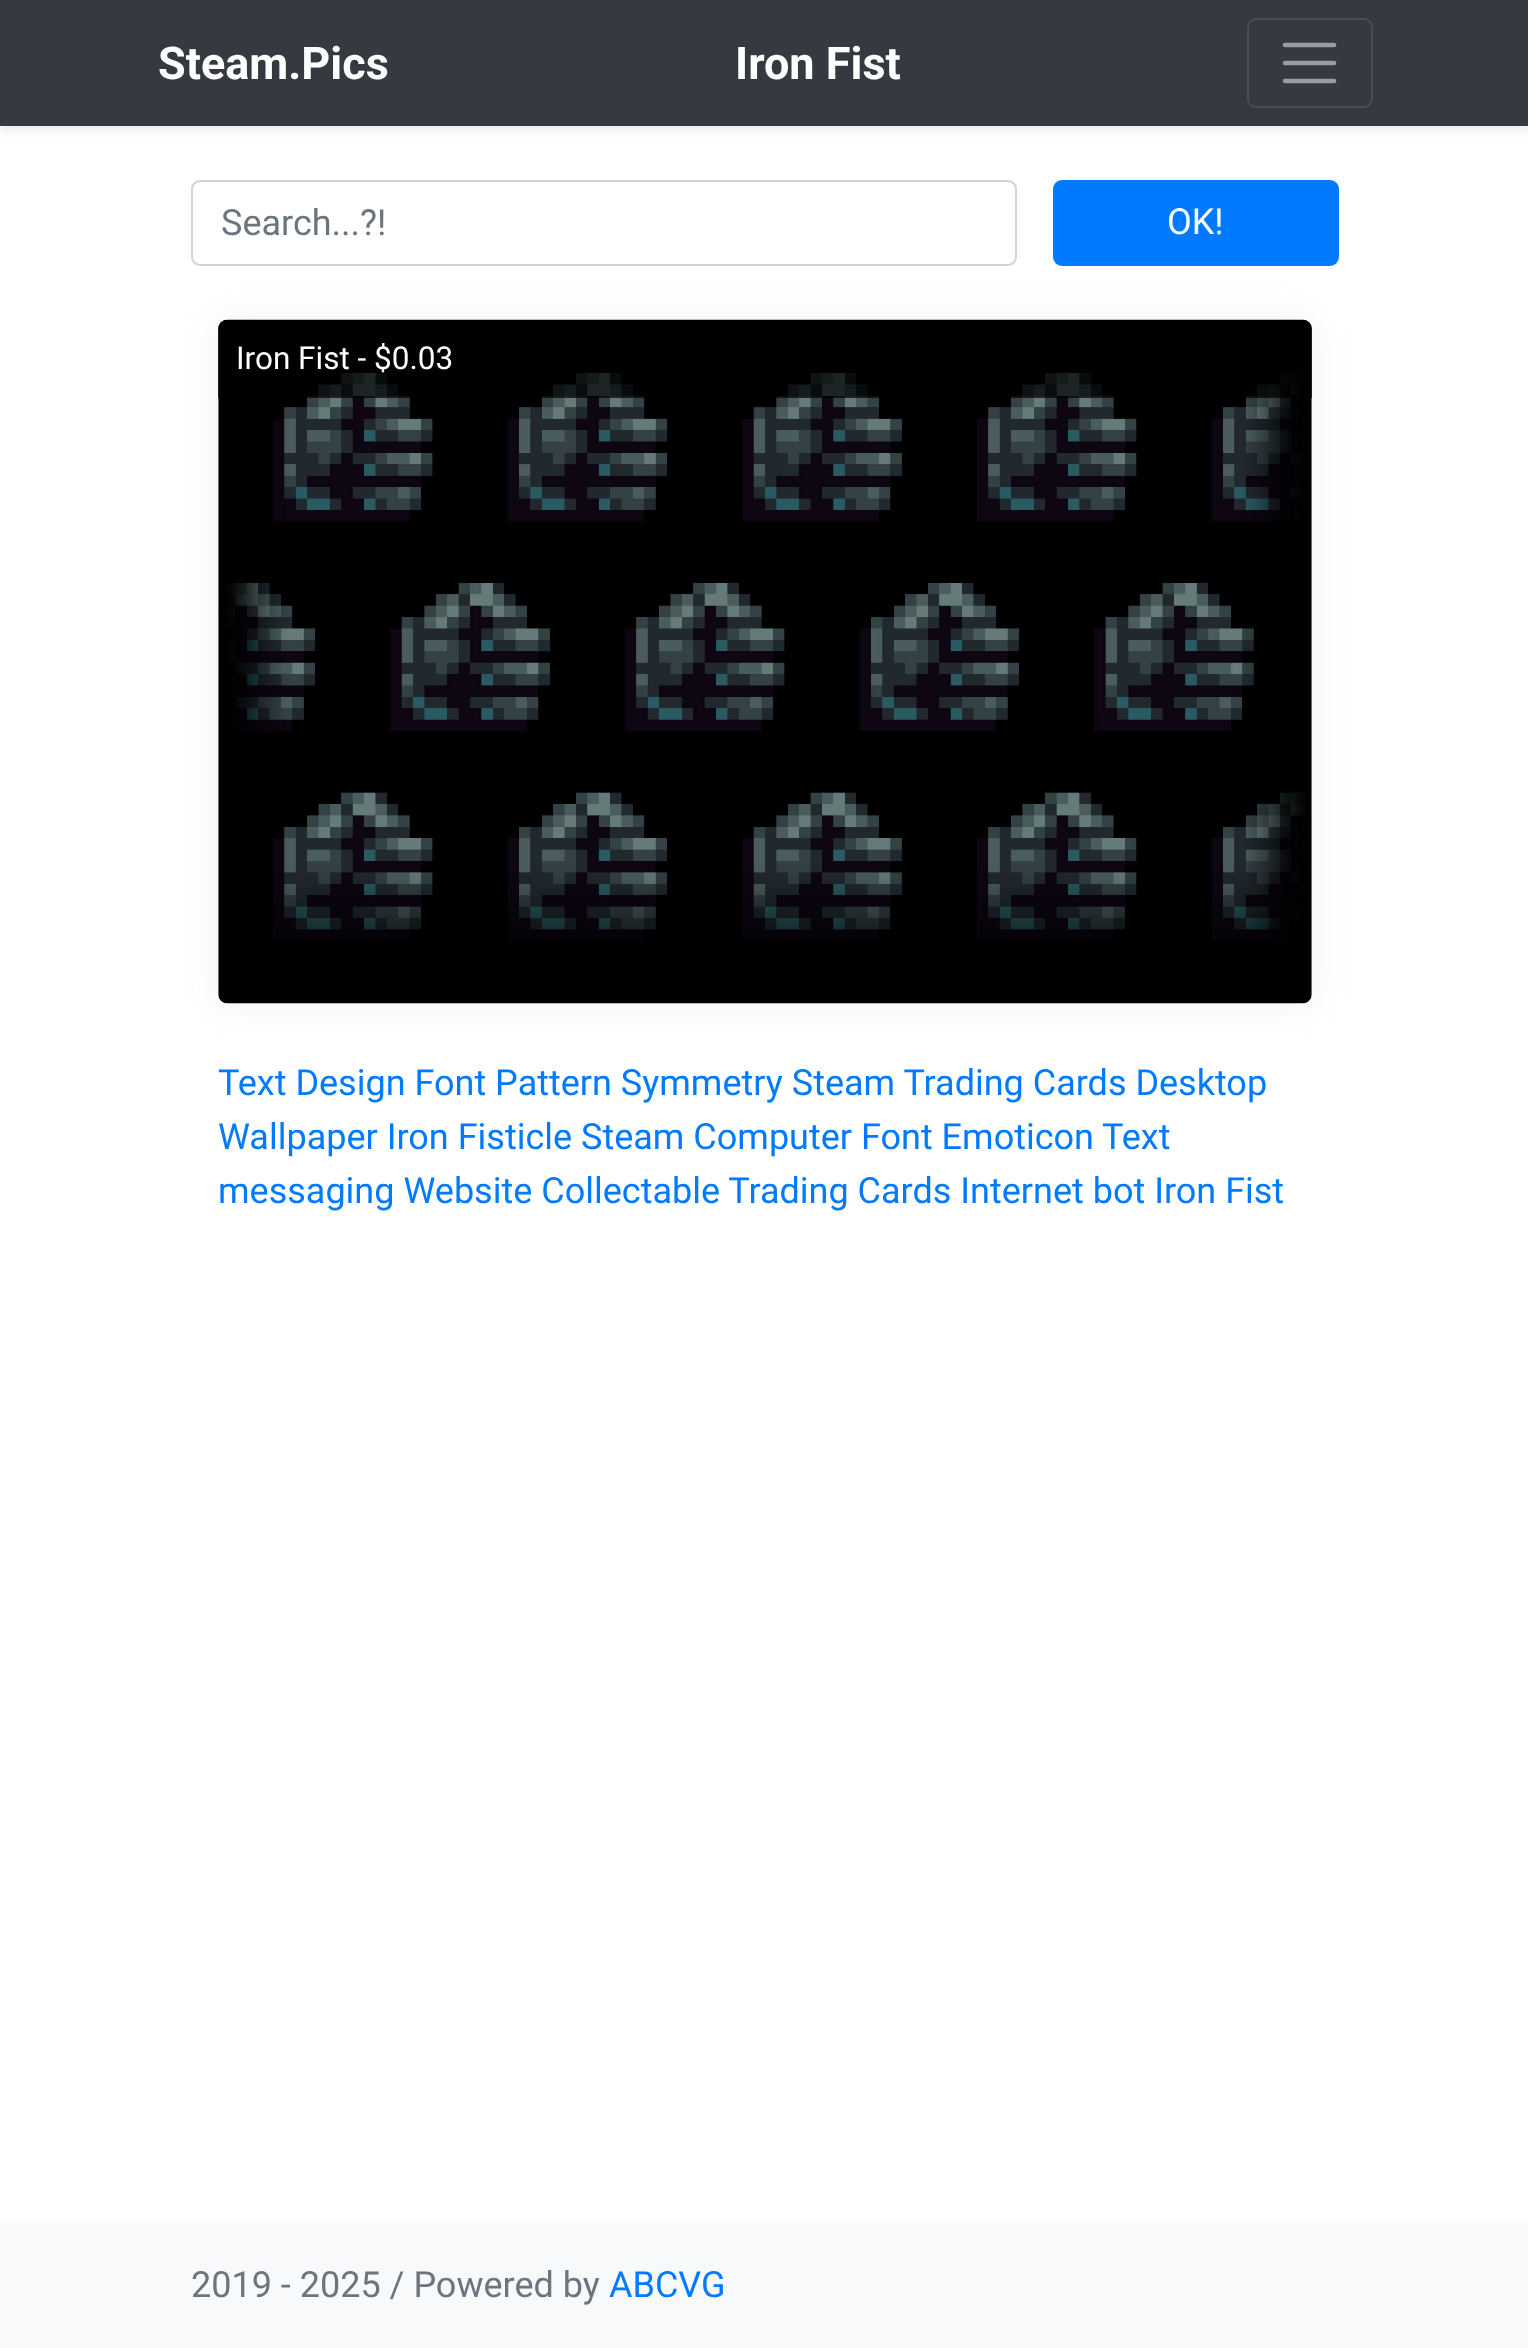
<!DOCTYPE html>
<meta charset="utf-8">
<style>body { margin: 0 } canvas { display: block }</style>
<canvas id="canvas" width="1528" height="2348"></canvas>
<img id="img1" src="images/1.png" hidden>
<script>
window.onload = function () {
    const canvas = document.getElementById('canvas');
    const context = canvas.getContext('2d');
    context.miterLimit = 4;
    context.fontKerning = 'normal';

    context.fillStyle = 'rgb(255, 255, 255)';
    context.fillRect(0, 0, 1528, 2348);
    context.fillStyle = 'rgba(0, 0, 0, 0.07)';
    context.filter = 'blur(4.5px)';
    context.beginPath();
    context.rect(0, 5, 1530, 126);
    context.fill();
    context.filter = 'none';
    context.fillStyle = 'rgb(52, 58, 64)';
    context.fillRect(0, 0, 1528, 126);
    context.beginPath();
    context.roundRect(1248, 19, 124, 88, 8);
    context.strokeStyle = 'rgb(72, 78, 83)';
    context.lineWidth = 2;
    context.stroke();
    context.beginPath();
    context.moveTo(1285, 45);
    context.lineTo(1334, 45);
    context.moveTo(1285, 63);
    context.lineTo(1334, 63);
    context.moveTo(1285, 81);
    context.lineTo(1334, 81);
    context.strokeStyle = 'rgb(154, 157, 160)';
    context.lineWidth = 4.5;
    context.lineCap = 'round';
    context.stroke();
    context.beginPath();
    context.roundRect(192, 181, 824, 84, 8);
    context.strokeStyle = 'rgb(206, 212, 218)';
    context.lineWidth = 2;
    context.stroke();
    context.fillStyle = 'rgb(0, 123, 255)';
    context.beginPath();
    context.roundRect(1054, 181, 284, 84, 8);
    context.fill();
    context.strokeStyle = 'rgb(0, 123, 255)';
    context.stroke();
    context.fillStyle = 'rgba(154, 161, 171, 0.15)';
    context.filter = 'blur(17px)';
    context.beginPath();
    context.roundRect(218, 320, 1094, 684, 9);
    context.fill();
    context.filter = 'none';
    context.drawImage(document.getElementById('img1'), 218, 319, 1094, 685);
    context.fillStyle = 'rgba(0, 0, 0, 0.7)';
    context.beginPath();
    context.roundRect(218, 320, 1094, 78, [9, 9, 0, 0]);
    context.fill();
    context.fillStyle = 'rgb(248, 249, 250)';
    context.fillRect(0, 2223, 1528, 125);
    context.font = 'bold 45px Roboto';
    context.fillStyle = 'rgb(255, 255, 255)';
    context.fillText('Steam.Pics', 158, 79);
    context.fillText('Iron Fist', 735, 79);
    context.font = '36px Roboto';
    context.fillStyle = 'rgb(108, 117, 125)';
    context.fillText('Search...?!', 221, 235);
    context.fillStyle = 'rgb(255, 255, 255)';
    context.fillText('OK!', 1167, 234);
    context.font = '31.5px Roboto';
    context.fillText('Iron Fist - $0.03', 236, 369);
    context.font = '36px Roboto';
    context.fillStyle = 'rgb(0, 123, 255)';
    context.fillText('Text Design Font Pattern Symmetry Steam Trading Cards Desktop', 218, 1095);
    context.fillText('Wallpaper Iron Fisticle Steam Computer Font Emoticon', 218, 1149);
    context.fillText('Text', 1102, 1149);
    context.fillText('messaging Website Collectable Trading Cards Internet bot Iron Fist', 218, 1203);
    context.fillStyle = 'rgb(108, 117, 125)';
    context.fillText('2019 - 2025 / Powered by', 191, 2297);
    context.fillStyle = 'rgb(0, 123, 255)';
    context.fillText('ABCVG', 609, 2297);
};
</script>
